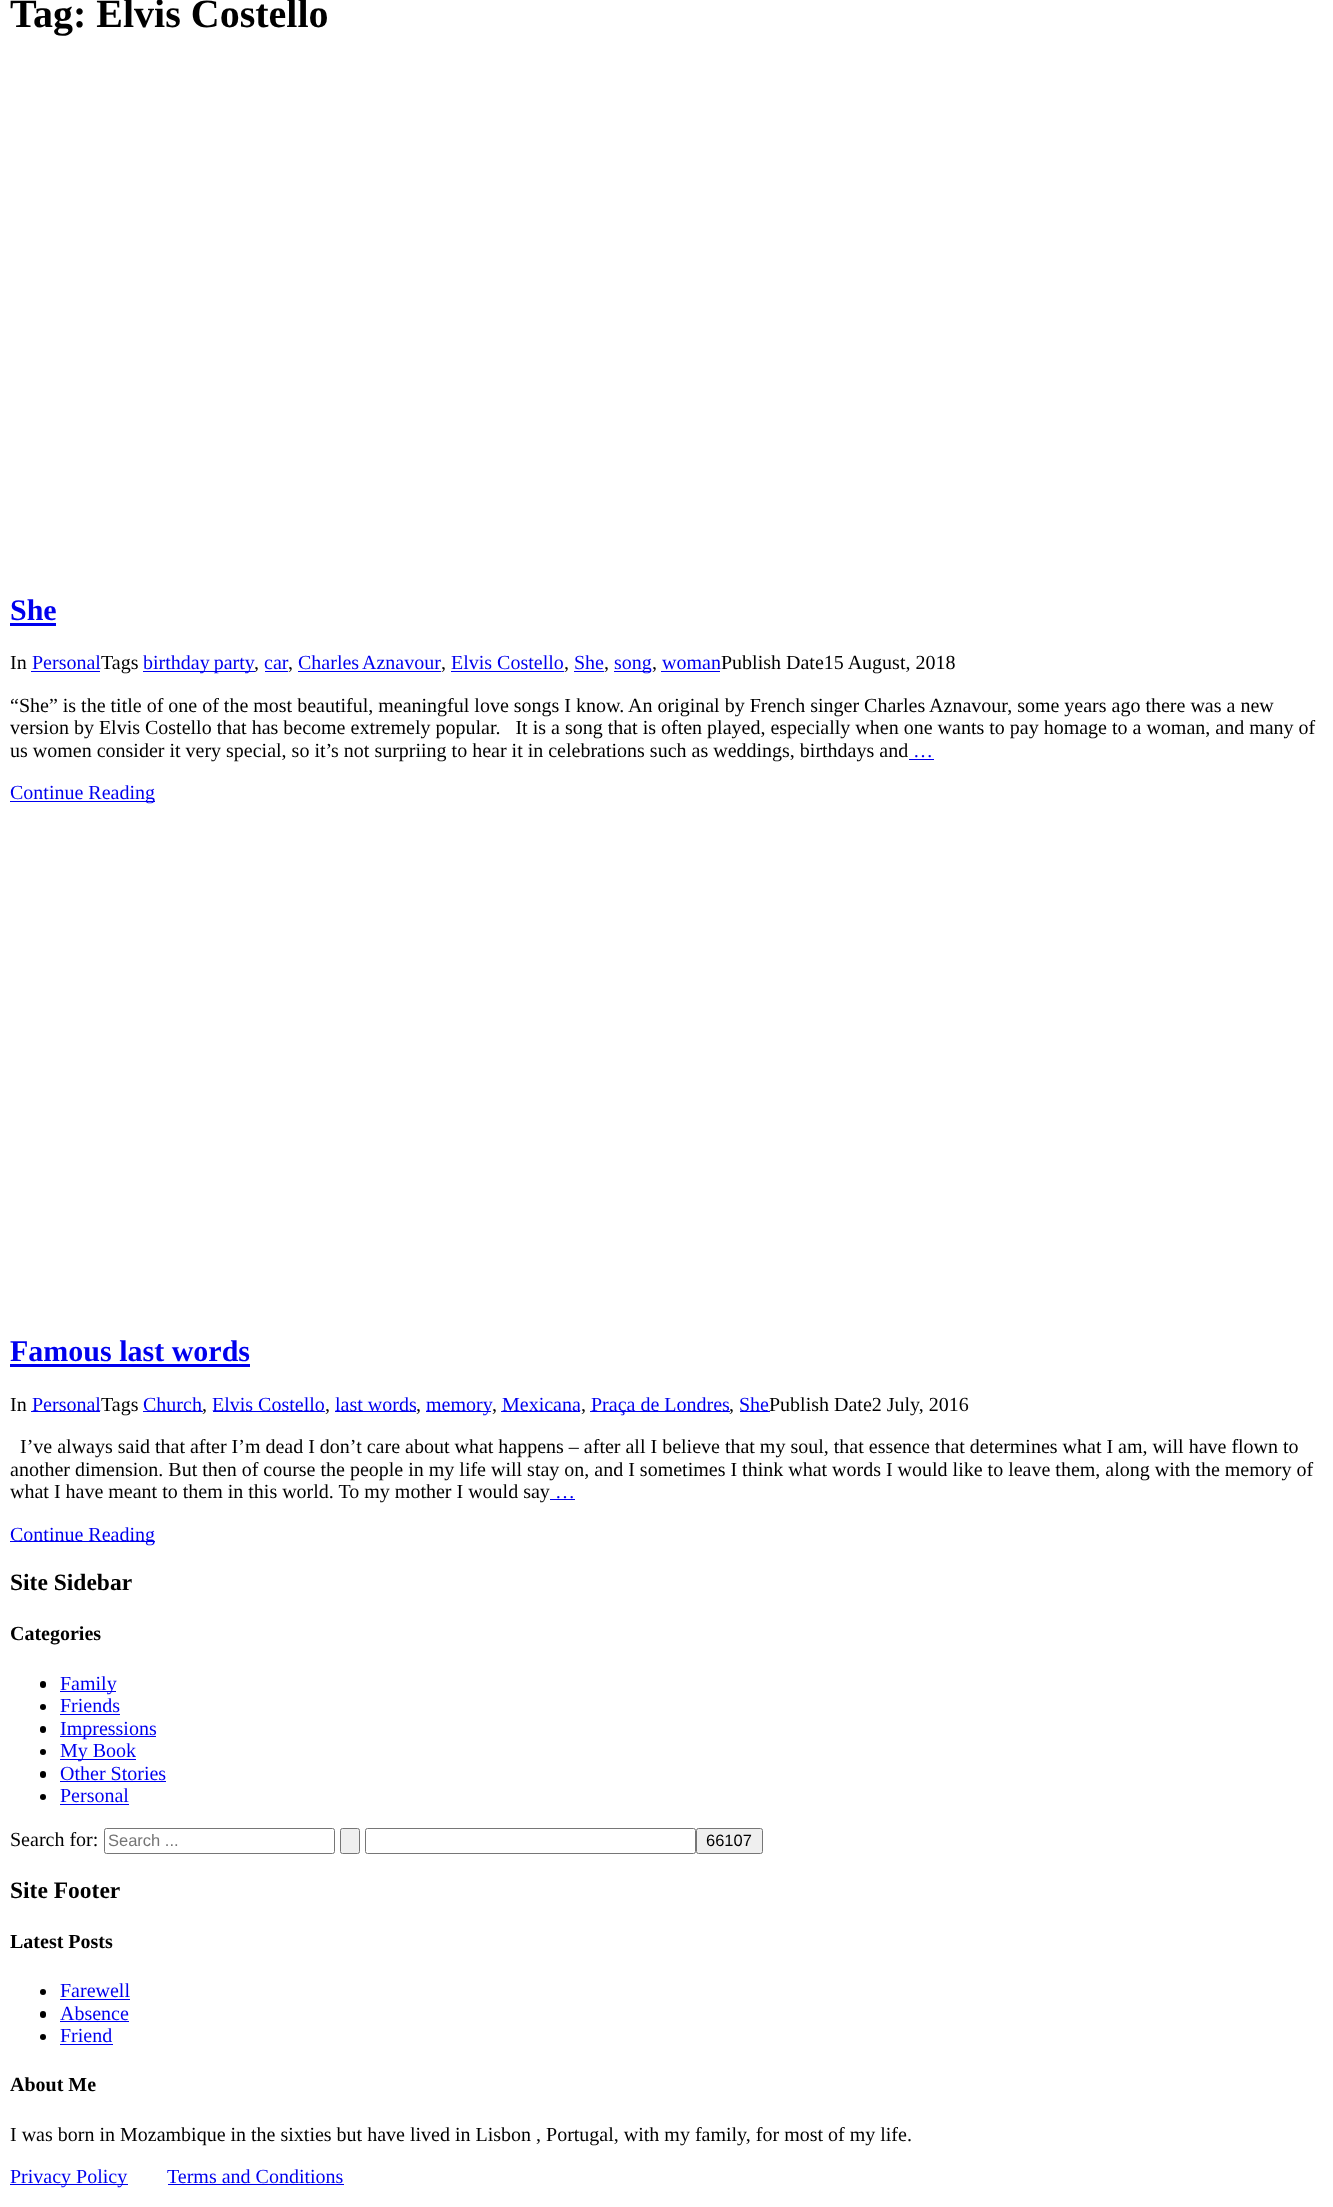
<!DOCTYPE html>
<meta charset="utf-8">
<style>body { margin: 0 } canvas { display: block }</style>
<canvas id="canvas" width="1333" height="2207"></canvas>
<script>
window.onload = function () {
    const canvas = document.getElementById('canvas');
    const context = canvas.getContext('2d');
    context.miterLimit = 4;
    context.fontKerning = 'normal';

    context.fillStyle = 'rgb(255, 255, 255)';
    context.fillRect(0, 0, 1333, 2207);
    context.fillStyle = 'rgb(0, 0, 238)';
    context.fillRect(10, 623, 46, 3);
    context.fillRect(31, 671, 69, 1);
    context.fillRect(143, 671, 112, 1);
    context.fillRect(265, 671, 23, 1);
    context.fillRect(298, 671, 143, 1);
    context.fillRect(451, 671, 113, 1);
    context.fillRect(574, 671, 30, 1);
    context.fillRect(614, 671, 37, 1);
    context.fillRect(661, 671, 59, 1);
    context.fillRect(909, 759, 25, 1);
    context.fillRect(10, 801, 145, 1);
    context.fillRect(10, 1364, 240, 3);
    context.fillRect(31, 1411, 69, 1);
    context.fillRect(143, 1411, 60, 1);
    context.fillRect(213, 1411, 112, 1);
    context.fillRect(335, 1411, 81, 1);
    context.fillRect(426, 1411, 65, 1);
    context.fillRect(501, 1411, 79, 1);
    context.fillRect(590, 1411, 140, 1);
    context.fillRect(740, 1411, 30, 1);
    context.fillRect(550, 1499, 25, 1);
    context.fillRect(10, 1541, 145, 1);
    context.fillStyle = 'rgb(0, 0, 0)';
    context.beginPath();
    context.roundRect(40, 1681, 6, 7, 3);
    context.fill();
    context.fillStyle = 'rgb(0, 0, 238)';
    context.fillRect(60, 1691, 56, 1);
    context.fillStyle = 'rgb(0, 0, 0)';
    context.beginPath();
    context.arc(43, 1707, 3, 0, 2 * Math.PI);
    context.fill();
    context.fillStyle = 'rgb(0, 0, 238)';
    context.fillRect(60, 1714, 60, 1);
    context.fillStyle = 'rgb(0, 0, 0)';
    context.beginPath();
    context.roundRect(40, 1726, 6, 7, 3);
    context.fill();
    context.fillStyle = 'rgb(0, 0, 238)';
    context.fillRect(60, 1736, 96, 1);
    context.fillStyle = 'rgb(0, 0, 0)';
    context.beginPath();
    context.arc(43, 1752, 3, 0, 2 * Math.PI);
    context.fill();
    context.fillStyle = 'rgb(0, 0, 238)';
    context.fillRect(60, 1759, 76, 1);
    context.fillStyle = 'rgb(0, 0, 0)';
    context.beginPath();
    context.roundRect(40, 1771, 6, 7, 3);
    context.fill();
    context.fillStyle = 'rgb(0, 0, 238)';
    context.fillRect(60, 1781, 106, 1);
    context.fillStyle = 'rgb(0, 0, 0)';
    context.beginPath();
    context.arc(43, 1797, 3, 0, 2 * Math.PI);
    context.fill();
    context.fillStyle = 'rgb(0, 0, 238)';
    context.fillRect(60, 1804, 69, 1);
    context.beginPath();
    context.roundRect(104.5, 1828.5, 230, 25, 2);
    context.strokeStyle = 'rgb(118, 118, 118)';
    context.stroke();
    context.fillStyle = 'rgb(239, 239, 239)';
    context.beginPath();
    context.roundRect(340.5, 1828.5, 19, 25, 2);
    context.fill();
    context.stroke();
    context.beginPath();
    context.roundRect(365.5, 1828.5, 330, 25, 2);
    context.stroke();
    context.beginPath();
    context.roundRect(696.5, 1828.5, 66, 25, 2);
    context.fill();
    context.stroke();
    context.fillStyle = 'rgb(0, 0, 0)';
    context.beginPath();
    context.arc(43, 1992, 3, 0, 2 * Math.PI);
    context.fill();
    context.fillStyle = 'rgb(0, 0, 238)';
    context.fillRect(60, 1999, 70, 1);
    context.fillStyle = 'rgb(0, 0, 0)';
    context.beginPath();
    context.roundRect(40, 2011, 6, 7, 3);
    context.fill();
    context.fillStyle = 'rgb(0, 0, 238)';
    context.fillRect(60, 2021, 69, 1);
    context.fillStyle = 'rgb(0, 0, 0)';
    context.beginPath();
    context.arc(43, 2037, 3, 0, 2 * Math.PI);
    context.fill();
    context.fillStyle = 'rgb(0, 0, 238)';
    context.fillRect(60, 2044, 53, 1);
    context.fillRect(10, 2184, 118, 1);
    context.fillRect(168, 2184, 176, 1);
    context.font = 'bold 40px Liberation Serif';
    context.fillStyle = 'rgb(0, 0, 0)';
    context.fillText('Tag: Elvis Costello', 10, 27);
    context.font = 'bold 30px Liberation Serif';
    context.fillStyle = 'rgb(0, 0, 238)';
    context.fillText('She', 10, 620);
    context.font = '20px Liberation Serif';
    context.fillStyle = 'rgb(0, 0, 0)';
    context.fillText('In', 10, 669);
    context.fillStyle = 'rgb(0, 0, 238)';
    context.fillText('Personal', 32, 669);
    context.fillStyle = 'rgb(0, 0, 0)';
    context.fillText('Tags', 101, 669);
    context.wordSpacing = '-1px';
    context.fillStyle = 'rgb(0, 0, 238)';
    context.fillText('birthday party', 143, 669);
    context.wordSpacing = '0px';
    context.fillStyle = 'rgb(0, 0, 0)';
    context.fillText(',', 254, 669);
    context.fillStyle = 'rgb(0, 0, 238)';
    context.fillText('car', 264, 669);
    context.fillStyle = 'rgb(0, 0, 0)';
    context.fillText(',', 288, 669);
    context.wordSpacing = '-1px';
    context.fillStyle = 'rgb(0, 0, 238)';
    context.fillText('Charles Aznavour', 298, 669);
    context.wordSpacing = '0px';
    context.fillStyle = 'rgb(0, 0, 0)';
    context.fillText(',', 441, 669);
    context.fillStyle = 'rgb(0, 0, 238)';
    context.fillText('Elvis Costello', 451, 669);
    context.fillStyle = 'rgb(0, 0, 0)';
    context.fillText(',', 564, 669);
    context.fillStyle = 'rgb(0, 0, 238)';
    context.fillText('She', 574, 669);
    context.fillStyle = 'rgb(0, 0, 0)';
    context.fillText(',', 604, 669);
    context.fillStyle = 'rgb(0, 0, 238)';
    context.fillText('song', 614, 669);
    context.fillStyle = 'rgb(0, 0, 0)';
    context.fillText(',', 652, 669);
    context.fillStyle = 'rgb(0, 0, 238)';
    context.fillText('woman', 662, 669);
    context.fillStyle = 'rgb(0, 0, 0)';
    context.fillText('Publish Date15 August, 2018', 721, 669);
    context.fillText('“She” is the title of one of the most beautiful, meaningful love songs I know. An original by French singer Charles Aznavour, some years ago there was a new', 10, 712);
    context.fillText('version by Elvis Costello that has become extremely popular.   It is a song that is often played, especially when one wants to pay homage to a woman, and many of', 10, 734);
    context.fillText('us women consider it very special, so it’s not surpriing to hear it in celebrations such as weddings, birthdays and', 10, 757);
    context.fillStyle = 'rgb(0, 0, 238)';
    context.fillText('…', 913, 757);
    context.fillText('Continue Reading', 10, 799);
    context.font = 'bold 30px Liberation Serif';
    context.fillText('Famous last words', 10, 1361);
    context.font = '20px Liberation Serif';
    context.fillStyle = 'rgb(0, 0, 0)';
    context.fillText('In', 10, 1411);
    context.fillStyle = 'rgb(0, 0, 238)';
    context.fillText('Personal', 32, 1411);
    context.fillStyle = 'rgb(0, 0, 0)';
    context.fillText('Tags', 101, 1411);
    context.fillStyle = 'rgb(0, 0, 238)';
    context.fillText('Church', 143, 1411);
    context.fillStyle = 'rgb(0, 0, 0)';
    context.fillText(',', 202, 1411);
    context.fillStyle = 'rgb(0, 0, 238)';
    context.fillText('Elvis Costello', 212, 1411);
    context.fillStyle = 'rgb(0, 0, 0)';
    context.fillText(',', 325, 1411);
    context.fillStyle = 'rgb(0, 0, 238)';
    context.fillText('last words', 335, 1411);
    context.fillStyle = 'rgb(0, 0, 0)';
    context.fillText(',', 416, 1411);
    context.fillStyle = 'rgb(0, 0, 238)';
    context.fillText('memory', 426, 1411);
    context.fillStyle = 'rgb(0, 0, 0)';
    context.fillText(',', 492, 1411);
    context.fillStyle = 'rgb(0, 0, 238)';
    context.fillText('Mexicana', 502, 1411);
    context.fillStyle = 'rgb(0, 0, 0)';
    context.fillText(',', 581, 1411);
    context.fillStyle = 'rgb(0, 0, 238)';
    context.fillText('Praça de Londres', 591, 1411);
    context.fillStyle = 'rgb(0, 0, 0)';
    context.fillText(',', 729, 1411);
    context.fillStyle = 'rgb(0, 0, 238)';
    context.fillText('She', 739, 1411);
    context.fillStyle = 'rgb(0, 0, 0)';
    context.fillText('Publish Date2 July, 2016', 769, 1411);
    context.fillText('I’ve always said that after I’m dead I don’t care about what happens – after all I believe that my soul, that essence that determines what I am, will have flown to', 20, 1453);
    context.fillText('another dimension. But then of course the people in my life will stay on, and I sometimes I think what words I would like to leave them, along with the memory of', 10, 1476);
    context.fillText('what I have meant to them in this world. To my mother I would say', 10, 1498);
    context.fillStyle = 'rgb(0, 0, 238)';
    context.fillText('…', 555, 1498);
    context.fillText('Continue Reading', 10, 1541);
    context.font = 'bold 23.5px Liberation Serif';
    context.fillStyle = 'rgb(0, 0, 0)';
    context.fillText('Site Sidebar', 10, 1590);
    context.font = 'bold 20px Liberation Serif';
    context.fillText('Categories', 10, 1640);
    context.font = '20px Liberation Serif';
    context.fillStyle = 'rgb(0, 0, 238)';
    context.fillText('Family', 60, 1690);
    context.fillText('Friends', 60, 1712);
    context.fillText('Impressions', 60, 1735);
    context.fillText('My Book', 60, 1757);
    context.fillText('Other Stories', 60, 1780);
    context.fillText('Personal', 60, 1802);
    context.fillStyle = 'rgb(0, 0, 0)';
    context.fillText('Search for:', 10, 1846);
    context.font = '16.5px Liberation Sans';
    context.fillStyle = 'rgb(117, 117, 117)';
    context.fillText('Search ...', 108, 1846);
    context.fillStyle = 'rgb(0, 0, 0)';
    context.fillText('66107', 706, 1846);
    context.font = 'bold 23.5px Liberation Serif';
    context.fillText('Site Footer', 10, 1898);
    context.font = 'bold 20px Liberation Serif';
    context.fillText('Latest Posts', 10, 1948);
    context.font = '20px Liberation Serif';
    context.fillStyle = 'rgb(0, 0, 238)';
    context.fillText('Farewell', 60, 1997);
    context.fillText('Absence', 60, 2020);
    context.fillText('Friend', 60, 2042);
    context.font = 'bold 20px Liberation Serif';
    context.fillStyle = 'rgb(0, 0, 0)';
    context.fillText('About Me', 10, 2091);
    context.font = '20px Liberation Serif';
    context.fillText('I was born in Mozambique in the sixties but have lived in Lisbon , Portugal, with my family, for most of my life.', 10, 2141);
    context.fillStyle = 'rgb(0, 0, 238)';
    context.fillText('Privacy Policy', 10, 2183);
    context.fillText('Terms and Conditions', 167, 2183);
};
</script>
